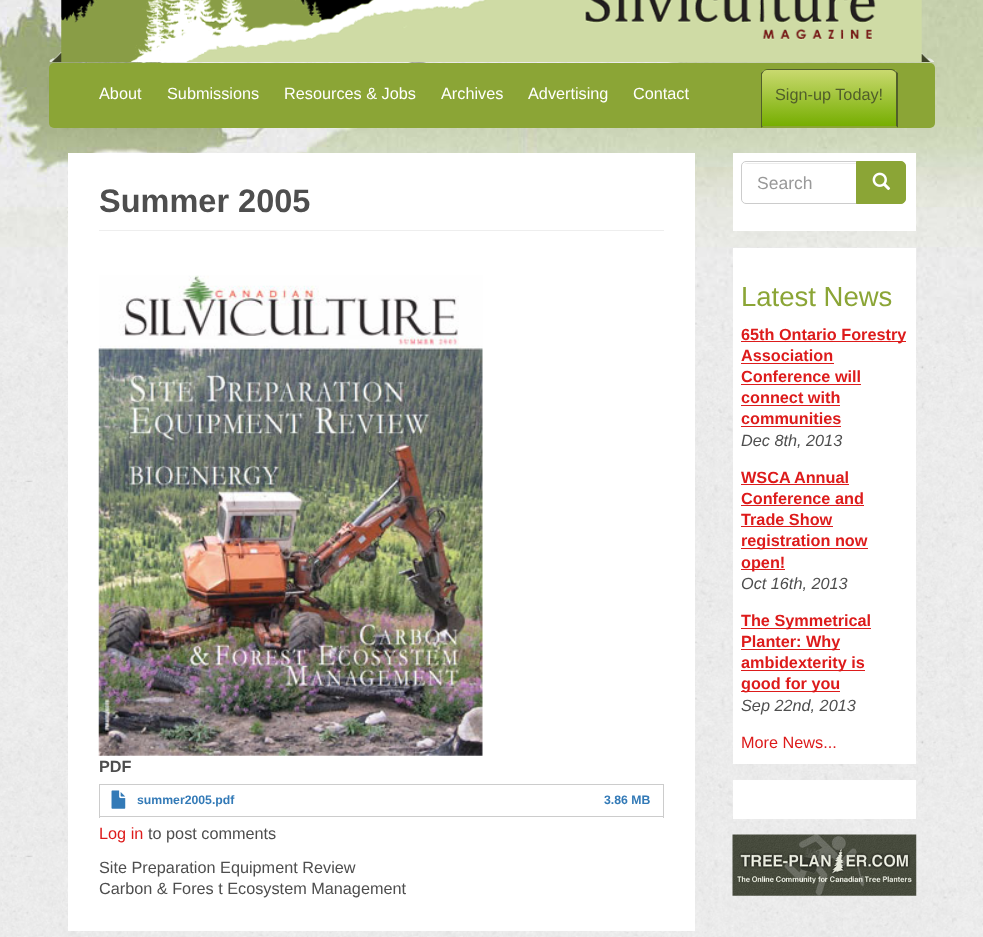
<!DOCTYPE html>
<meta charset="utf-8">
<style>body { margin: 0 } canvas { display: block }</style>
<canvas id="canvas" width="983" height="937"></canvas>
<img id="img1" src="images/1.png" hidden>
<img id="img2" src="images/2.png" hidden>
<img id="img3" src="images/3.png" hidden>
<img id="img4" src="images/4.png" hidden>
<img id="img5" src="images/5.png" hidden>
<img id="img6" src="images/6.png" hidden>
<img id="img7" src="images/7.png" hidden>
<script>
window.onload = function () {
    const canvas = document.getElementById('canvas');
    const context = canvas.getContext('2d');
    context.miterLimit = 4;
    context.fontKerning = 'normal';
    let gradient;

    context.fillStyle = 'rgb(255, 255, 255)';
    context.fillRect(0, 0, 983, 937);
    context.drawImage(document.getElementById('img1'), 0, 314, 983, 623);
    context.drawImage(document.getElementById('img2'), 0, 0, 983, 315);
    context.drawImage(document.getElementById('img3'), 49, 0, 885, 62);
    context.fillStyle = 'rgb(139, 165, 54)';
    context.beginPath();
    context.roundRect(49, 63, 886, 65, 5);
    context.fill();
    context.save();
    context.beginPath();
    context.roundRect(761, 69, 137, 59, [6, 6, 0, 0]);
    context.clip();
    gradient = context.createLinearGradient(829, 14, 829, 70);
    gradient.addColorStop(0, 'rgb(201, 217, 111)');
    gradient.addColorStop(1, 'rgb(118, 174, 1)');
    context.fillStyle = gradient;
    context.fillRect(761, 69, 137, 1);
    gradient = context.createLinearGradient(829, 70, 829, 126);
    gradient.addColorStop(0, 'rgb(201, 217, 111)');
    gradient.addColorStop(1, 'rgb(118, 174, 1)');
    context.fillStyle = gradient;
    context.fillRect(761, 70, 137, 56);
    context.restore();
    context.fillStyle = 'rgb(81, 94, 43)';
    context.beginPath();
    context.moveTo(768, 69);
    context.bezierCurveTo(766, 69, 764, 70, 763, 71);
    context.lineTo(764, 71);
    context.bezierCurveTo(765, 70, 766, 70, 768, 70);
    context.lineTo(891, 70);
    context.bezierCurveTo(893, 70, 894, 71, 895, 72);
    context.lineTo(896, 71);
    context.bezierCurveTo(894, 70, 893, 69, 891, 69);
    context.closePath();
    context.fill();
    context.beginPath();
    context.moveTo(896, 71);
    context.lineTo(898, 73);
    context.lineTo(898, 128);
    context.lineTo(896, 126);
    context.lineTo(896, 75);
    context.bezierCurveTo(896, 74, 896, 72, 895, 72);
    context.closePath();
    context.fill();
    context.fillStyle = 'rgb(139, 165, 54)';
    context.beginPath();
    context.moveTo(898, 128);
    context.lineTo(896, 126);
    context.lineTo(763, 126);
    context.lineTo(761, 128);
    context.closePath();
    context.fill();
    context.fillStyle = 'rgb(81, 94, 43)';
    context.beginPath();
    context.moveTo(761, 128);
    context.lineTo(763, 126);
    context.lineTo(762, 126);
    context.lineTo(762, 74);
    context.lineTo(764, 71);
    context.lineTo(763, 71);
    context.lineTo(761, 73);
    context.closePath();
    context.fill();
    context.fillStyle = 'rgb(255, 255, 255)';
    context.fillRect(68, 153, 627, 778);
    context.fillStyle = 'rgb(238, 238, 238)';
    context.fillRect(99, 230, 565, 1);
    context.drawImage(document.getElementById('img4'), 98, 275, 385, 481);
    context.fillStyle = 'rgb(204, 204, 204)';
    context.fillRect(99, 784, 565, 1);
    context.fillRect(99, 816, 492, 1);
    context.fillRect(99, 784, 1, 34);
    context.drawImage(document.getElementById('img5'), 111, 790, 15, 19);
    context.fillRect(663, 784, 1, 34);
    context.fillRect(591, 816, 73, 1);
    context.fillStyle = 'rgb(255, 255, 255)';
    context.fillRect(733, 153, 183, 78);
    context.fillStyle = 'rgb(236, 236, 236)';
    context.beginPath();
    context.moveTo(746, 164);
    context.lineTo(856, 164);
    context.lineTo(856, 163);
    context.lineTo(747, 163);
    context.lineTo(744, 164);
    context.closePath();
    context.fill();
    context.beginPath();
    context.roundRect(741.5, 161.5, 116, 42, [4.5, 0, 0, 4.5]);
    context.strokeStyle = 'rgb(204, 204, 204)';
    context.stroke();
    context.fillStyle = 'rgb(139, 165, 54)';
    context.beginPath();
    context.roundRect(856.5, 161.5, 49, 42, [0, 4.5, 4.5, 0]);
    context.fill();
    context.strokeStyle = 'rgb(139, 165, 54)';
    context.stroke();
    context.drawImage(document.getElementById('img6'), 872, 172, 19, 19);
    context.fillStyle = 'rgb(255, 255, 255)';
    context.fillRect(733, 248, 183, 516);
    context.fillStyle = 'rgb(221, 27, 27)';
    context.fillRect(741, 341, 165, 1);
    context.fillRect(741, 363, 93, 1);
    context.fillRect(741, 384, 120, 1);
    context.fillRect(741, 405, 99, 1);
    context.fillRect(741, 426, 100, 1);
    context.fillRect(741, 484, 108, 1);
    context.fillRect(741, 505, 123, 1);
    context.fillRect(741, 526, 92, 1);
    context.fillRect(741, 548, 127, 1);
    context.fillRect(741, 569, 44, 1);
    context.fillRect(741, 628, 130, 1);
    context.fillRect(741, 649, 99, 1);
    context.fillRect(741, 670, 124, 1);
    context.fillRect(741, 691, 99, 1);
    context.fillStyle = 'rgb(255, 255, 255)';
    context.fillRect(733, 780, 183, 39);
    context.drawImage(document.getElementById('img7'), 732, 834, 185, 62);
    context.font = '16.25px Liberation Sans';
    context.fillText('About', 99, 99);
    context.fillText('Submissions', 167, 99);
    context.fillText('Resources & Jobs', 284, 99);
    context.fillText('Archives', 441, 99);
    context.fillText('Advertising', 528, 99);
    context.fillText('Contact', 633, 99);
    context.fillStyle = 'rgb(81, 94, 43)';
    context.fillText('Sign-up Today!', 775, 100);
    context.font = 'bold 32.5px Liberation Sans';
    context.fillStyle = 'rgb(78, 78, 78)';
    context.fillText('Summer 2005', 99, 212);
    context.font = 'bold 16.25px Liberation Sans';
    context.fillText('PDF', 99, 772);
    context.font = 'bold 12.25px Liberation Sans';
    context.fillStyle = 'rgb(51, 122, 183)';
    context.fillText('summer2005.pdf', 137, 804);
    context.fillText('3.86 MB', 604, 804);
    context.font = '16.25px Liberation Sans';
    context.fillStyle = 'rgb(221, 27, 27)';
    context.fillText('Log in', 99, 839);
    context.fillStyle = 'rgb(78, 78, 78)';
    context.fillText('to post comments', 148, 839);
    context.fillText('Site Preparation Equipment Review', 99, 873);
    context.fillText('Carbon & Fores t Ecosystem Management', 99, 894);
    context.font = '17.5px Liberation Sans';
    context.fillStyle = 'rgb(153, 153, 153)';
    context.fillText('Search', 757, 189);
    context.font = '27.5px Liberation Sans';
    context.fillStyle = 'rgb(139, 165, 54)';
    context.fillText('Latest News', 741, 306);
    context.font = 'bold 16.25px Liberation Sans';
    context.fillStyle = 'rgb(221, 27, 27)';
    context.fillText('65th Ontario Forestry', 741, 340);
    context.fillText('Association', 741, 361);
    context.fillText('Conference will', 741, 382);
    context.fillText('connect with', 741, 403);
    context.fillText('communities', 741, 424);
    context.font = 'italic 16.25px Liberation Sans';
    context.fillStyle = 'rgb(78, 78, 78)';
    context.fillText('Dec 8th, 2013', 741, 446);
    context.font = 'bold 16.25px Liberation Sans';
    context.fillStyle = 'rgb(221, 27, 27)';
    context.fillText('WSCA Annual', 741, 483);
    context.fillText('Conference and', 741, 504);
    context.fillText('Trade Show', 741, 525);
    context.fillText('registration now', 741, 546);
    context.fillText('open!', 741, 568);
    context.font = 'italic 16.25px Liberation Sans';
    context.fillStyle = 'rgb(78, 78, 78)';
    context.fillText('Oct 16th, 2013', 741, 589);
    context.font = 'bold 16.25px Liberation Sans';
    context.fillStyle = 'rgb(221, 27, 27)';
    context.fillText('The Symmetrical', 741, 626);
    context.fillText('Planter: Why', 741, 647);
    context.fillText('ambidexterity is', 741, 668);
    context.fillText('good for you', 741, 689);
    context.font = 'italic 16.25px Liberation Sans';
    context.fillStyle = 'rgb(78, 78, 78)';
    context.fillText('Sep 22nd, 2013', 741, 711);
    context.font = '16.25px Liberation Sans';
    context.fillStyle = 'rgb(221, 27, 27)';
    context.fillText('More News...', 741, 748);
};
</script>
